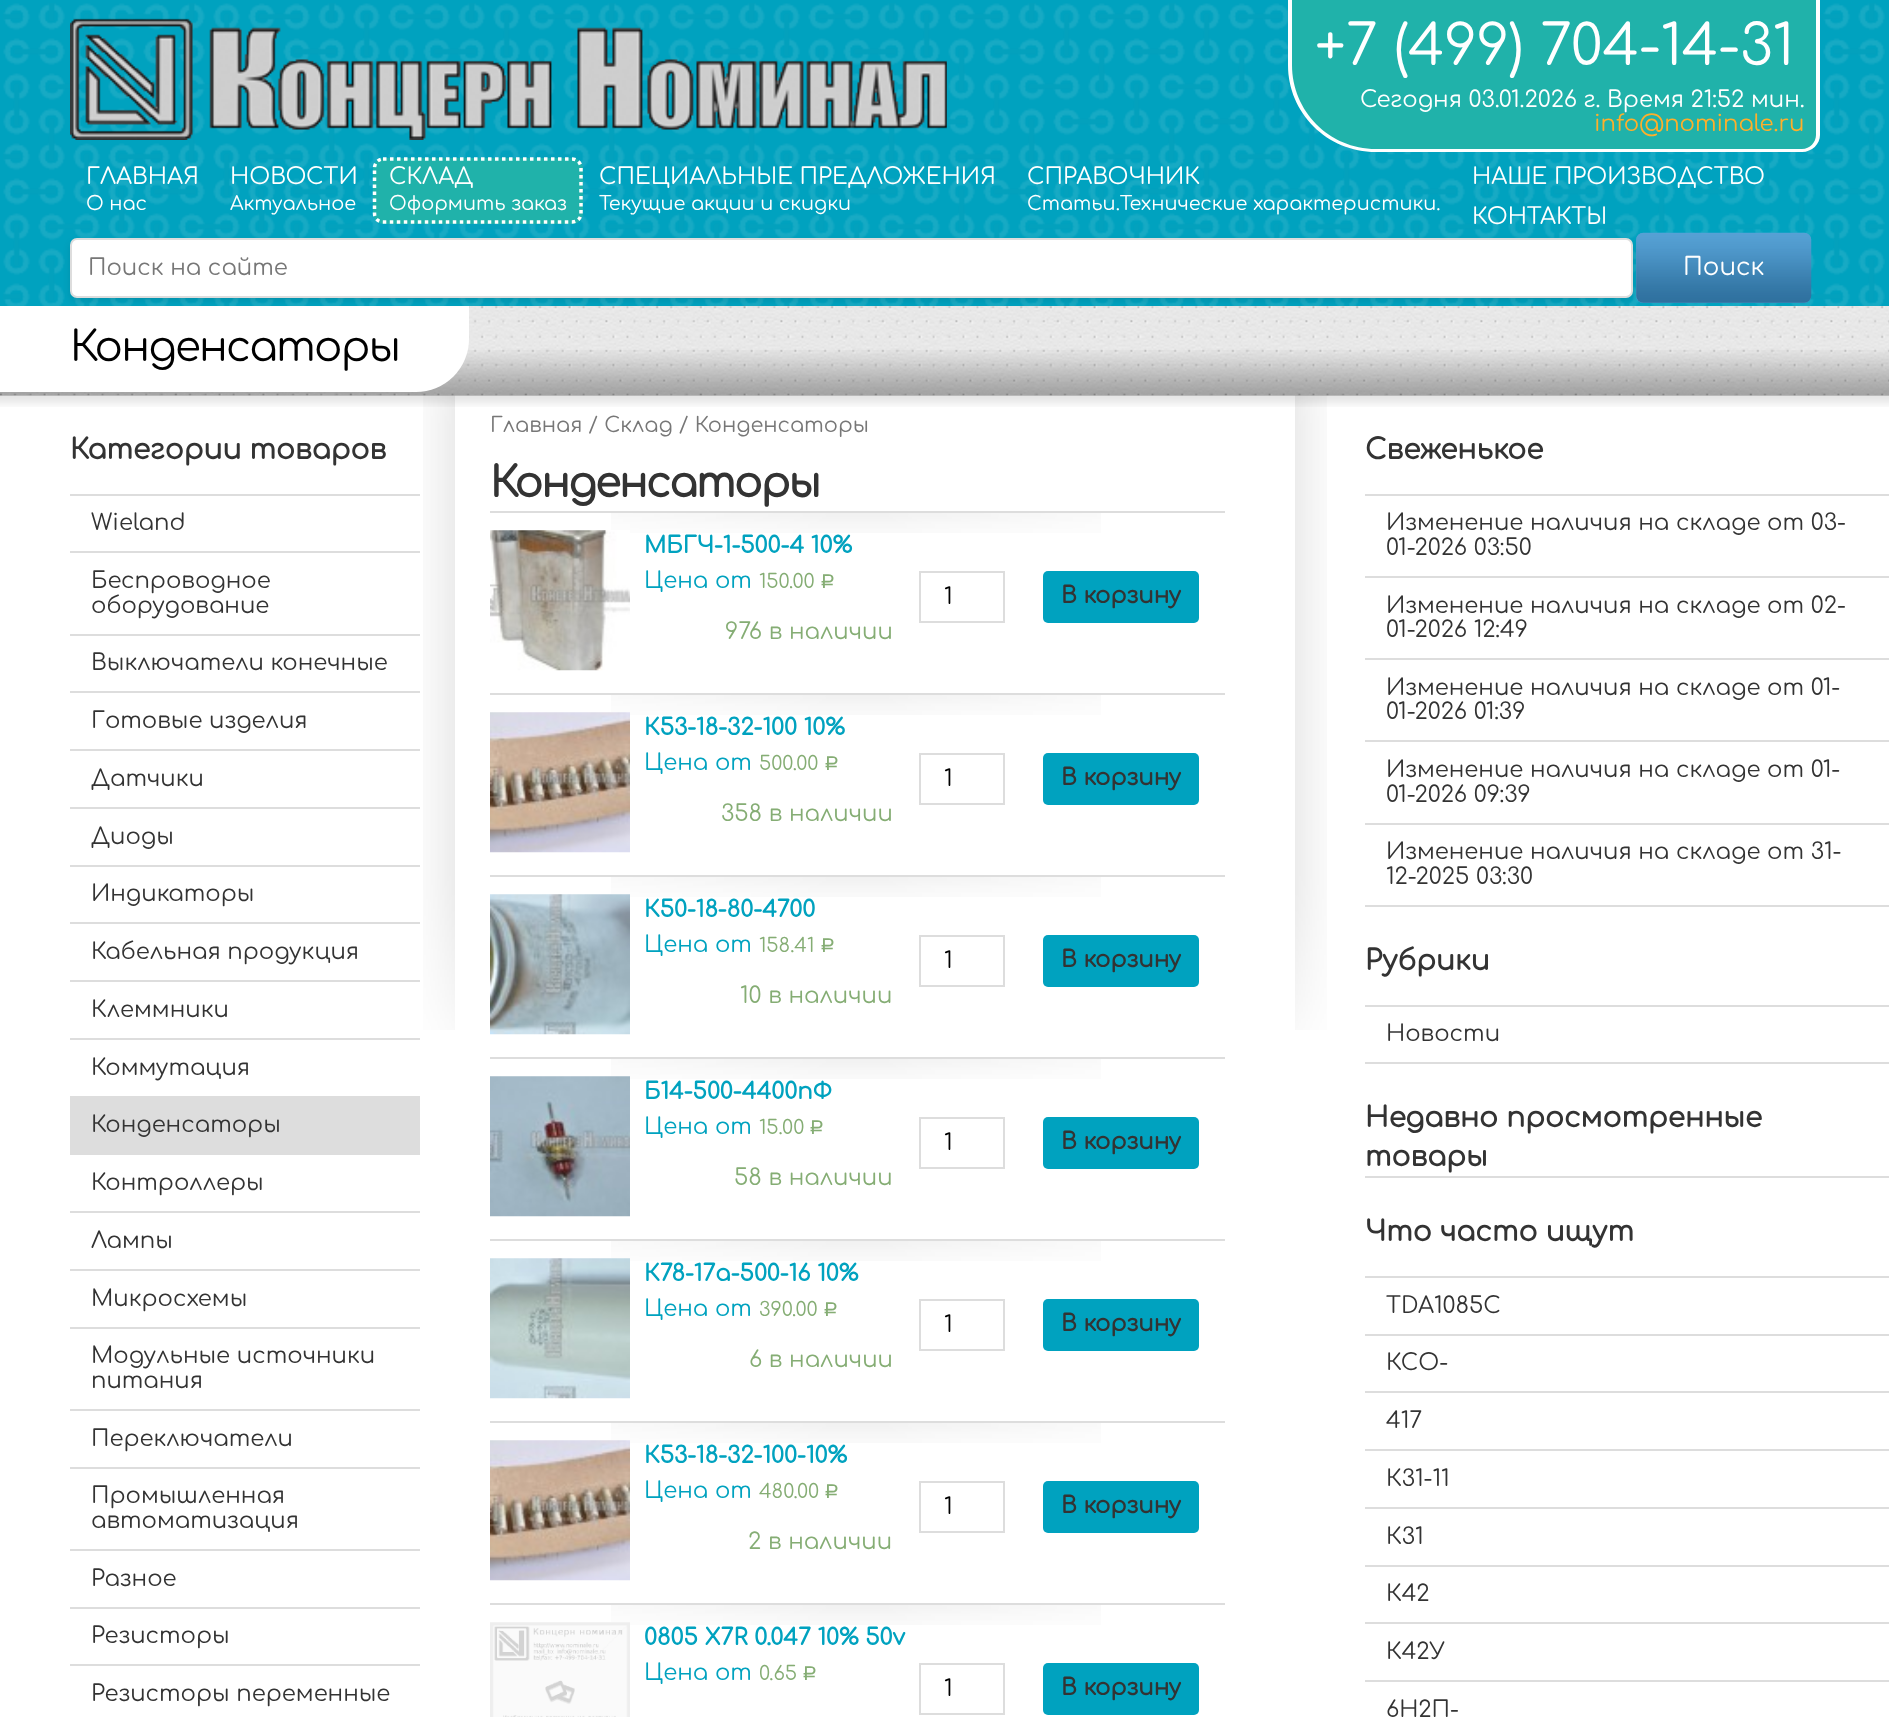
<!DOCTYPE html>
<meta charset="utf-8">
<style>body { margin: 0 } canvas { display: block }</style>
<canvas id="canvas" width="1889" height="1717"></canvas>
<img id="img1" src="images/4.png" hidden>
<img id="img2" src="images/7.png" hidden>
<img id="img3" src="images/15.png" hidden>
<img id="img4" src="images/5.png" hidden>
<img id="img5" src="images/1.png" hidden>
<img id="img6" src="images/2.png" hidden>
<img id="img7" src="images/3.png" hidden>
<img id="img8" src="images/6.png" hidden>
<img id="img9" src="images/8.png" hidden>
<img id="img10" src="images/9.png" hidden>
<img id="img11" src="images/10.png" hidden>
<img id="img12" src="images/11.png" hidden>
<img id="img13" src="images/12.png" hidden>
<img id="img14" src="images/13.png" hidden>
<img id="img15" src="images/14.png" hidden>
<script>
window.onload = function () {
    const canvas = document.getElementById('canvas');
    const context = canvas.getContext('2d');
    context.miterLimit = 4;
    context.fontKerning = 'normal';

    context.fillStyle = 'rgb(224, 224, 224)';
    context.fillRect(0, 0, 1889, 1717);
    context.drawImage(document.getElementById('img1'), 0, 306, 1889, 90);
    context.fillStyle = 'rgb(255, 255, 255)';
    context.fillRect(0, 396, 1889, 1321);
    context.drawImage(document.getElementById('img2'), 423, 395, 32, 635);
    context.drawImage(document.getElementById('img3'), 1295, 395, 32, 635);
    context.drawImage(document.getElementById('img4'), 0, 350, 1889, 46);
    context.beginPath();
    context.roundRect(0, 305, 469, 87, [0, 0, 53, 0]);
    context.fill();
    context.fillStyle = 'rgb(0, 162, 191)';
    context.fillRect(0, 0, 1889, 306);
    context.drawImage(document.getElementById('img5'), 3, 3, 1882, 303);
    context.drawImage(document.getElementById('img6'), 70, 18, 877, 122);
    context.fillStyle = 'rgb(32, 178, 170)';
    context.beginPath();
    context.roundRect(1288, 0, 532, 152, [0, 0, 18, 88]);
    context.fill();
    context.fillStyle = 'rgb(255, 255, 255)';
    context.beginPath();
    context.moveTo(1288, 0);
    context.lineTo(1820, 0);
    context.lineTo(1820, 135);
    context.bezierCurveTo(1820, 144, 1812, 152, 1802, 152);
    context.lineTo(1376, 152);
    context.bezierCurveTo(1327, 152, 1288, 113, 1288, 65);
    context.closePath();
    context.moveTo(1292, 0);
    context.lineTo(1816, 0);
    context.lineTo(1816, 135);
    context.bezierCurveTo(1816, 142, 1810, 149, 1802, 149);
    context.lineTo(1376, 149);
    context.bezierCurveTo(1329, 149, 1292, 111, 1292, 65);
    context.closePath();
    context.fill('evenodd');
    context.fillStyle = 'rgb(32, 178, 170)';
    context.beginPath();
    context.roundRect(373, 158, 210, 66, 11);
    context.fill();
    context.beginPath();
    context.moveTo(383, 159);
    context.lineTo(572, 159);
    context.bezierCurveTo(577, 159, 581, 163, 581, 168);
    context.lineTo(581, 213.5);
    context.bezierCurveTo(581, 218.5, 577, 222, 572, 222);
    context.lineTo(383, 222);
    context.bezierCurveTo(378.5, 222, 374.5, 218.5, 374.5, 213.5);
    context.lineTo(374.5, 168);
    context.bezierCurveTo(374.5, 163, 378.5, 159, 383, 159);
    context.closePath();
    context.strokeStyle = 'rgb(255, 255, 255)';
    context.lineWidth = 3.5;
    context.setLineDash([3.5, 3.5]);
    context.stroke();
    context.fillStyle = 'rgb(83, 157, 208)';
    context.beginPath();
    context.roundRect(1636, 233, 175, 70, 7);
    context.fill();
    context.drawImage(document.getElementById('img7'), 1636, 232, 176, 71);
    context.fillStyle = 'rgba(0, 0, 0, 0.1)';
    context.filter = 'blur(3.5px)';
    context.beginPath();
    context.roundRect(70, 242, 1563, 59, 7);
    context.fill();
    context.filter = 'none';
    context.fillStyle = 'rgb(255, 255, 255)';
    context.beginPath();
    context.roundRect(71, 239, 1561, 58, 6);
    context.fill();
    context.strokeStyle = 'rgb(221, 221, 221)';
    context.lineWidth = 2;
    context.setLineDash([]);
    context.stroke();
    context.drawImage(document.getElementById('img8'), 0, 395, 1889, 12);
    context.fillStyle = 'rgb(221, 221, 221)';
    context.fillRect(70, 494, 350, 2);
    context.fillRect(70, 551, 350, 2);
    context.fillRect(70, 634, 350, 2);
    context.fillRect(70, 691, 350, 2);
    context.fillRect(70, 749, 350, 2);
    context.fillRect(70, 807, 350, 2);
    context.fillRect(70, 865, 350, 2);
    context.fillRect(70, 922, 350, 2);
    context.fillRect(70, 980, 350, 2);
    context.fillRect(70, 1038, 350, 2);
    context.fillRect(70, 1096, 350, 59);
    context.fillRect(70, 1211, 350, 2);
    context.fillRect(70, 1269, 350, 2);
    context.fillRect(70, 1327, 350, 2);
    context.fillRect(70, 1409, 350, 2);
    context.fillRect(70, 1467, 350, 2);
    context.fillRect(70, 1549, 350, 2);
    context.fillRect(70, 1607, 350, 2);
    context.fillRect(70, 1664, 350, 2);
    context.drawImage(document.getElementById('img9'), 611, 513, 490, 20);
    context.fillRect(490, 511, 735, 2);
    context.drawImage(document.getElementById('img10'), 490, 530, 140, 141);
    context.strokeRect(920, 572, 84, 50);
    context.fillStyle = 'rgb(0, 162, 191)';
    context.beginPath();
    context.roundRect(1043, 571, 156, 52, 5);
    context.fill();
    context.drawImage(document.getElementById('img9'), 611, 695, 490, 20);
    context.fillStyle = 'rgb(221, 221, 221)';
    context.fillRect(490, 693, 735, 2);
    context.drawImage(document.getElementById('img11'), 490, 712, 140, 141);
    context.strokeRect(920, 754, 84, 50);
    context.fillStyle = 'rgb(0, 162, 191)';
    context.beginPath();
    context.roundRect(1043, 753, 156, 52, 5);
    context.fill();
    context.drawImage(document.getElementById('img9'), 611, 877, 490, 20);
    context.fillStyle = 'rgb(221, 221, 221)';
    context.fillRect(490, 875, 735, 2);
    context.drawImage(document.getElementById('img12'), 490, 894, 140, 141);
    context.strokeRect(920, 936, 84, 50);
    context.fillStyle = 'rgb(0, 162, 191)';
    context.beginPath();
    context.roundRect(1043, 935, 156, 52, 5);
    context.fill();
    context.drawImage(document.getElementById('img9'), 611, 1059, 490, 20);
    context.fillStyle = 'rgb(221, 221, 221)';
    context.fillRect(490, 1057, 735, 2);
    context.drawImage(document.getElementById('img13'), 490, 1076, 140, 141);
    context.strokeRect(920, 1118, 84, 50);
    context.fillStyle = 'rgb(0, 162, 191)';
    context.beginPath();
    context.roundRect(1043, 1117, 156, 52, 5);
    context.fill();
    context.drawImage(document.getElementById('img9'), 611, 1241, 490, 20);
    context.fillStyle = 'rgb(221, 221, 221)';
    context.fillRect(490, 1239, 735, 2);
    context.drawImage(document.getElementById('img14'), 490, 1258, 140, 141);
    context.strokeRect(920, 1300, 84, 50);
    context.fillStyle = 'rgb(0, 162, 191)';
    context.beginPath();
    context.roundRect(1043, 1299, 156, 52, 5);
    context.fill();
    context.drawImage(document.getElementById('img9'), 611, 1423, 490, 20);
    context.fillStyle = 'rgb(221, 221, 221)';
    context.fillRect(490, 1421, 735, 2);
    context.drawImage(document.getElementById('img11'), 490, 1440, 140, 141);
    context.strokeRect(920, 1482, 84, 50);
    context.fillStyle = 'rgb(0, 162, 191)';
    context.beginPath();
    context.roundRect(1043, 1481, 156, 52, 5);
    context.fill();
    context.drawImage(document.getElementById('img9'), 611, 1605, 490, 20);
    context.fillStyle = 'rgb(221, 221, 221)';
    context.fillRect(490, 1603, 735, 2);
    context.drawImage(document.getElementById('img15'), 490, 1622, 140, 95);
    context.strokeRect(920, 1664, 84, 50);
    context.fillStyle = 'rgb(0, 162, 191)';
    context.beginPath();
    context.roundRect(1043, 1663, 156, 52, 5);
    context.fill();
    context.fillStyle = 'rgb(221, 221, 221)';
    context.fillRect(1365, 905, 524, 2);
    context.fillRect(1365, 494, 524, 2);
    context.fillRect(1365, 576, 524, 2);
    context.fillRect(1365, 658, 524, 2);
    context.fillRect(1365, 740, 524, 2);
    context.fillRect(1365, 823, 524, 2);
    context.fillRect(1365, 1062, 524, 2);
    context.fillRect(1365, 1005, 524, 2);
    context.fillRect(1365, 1176, 524, 2);
    context.fillRect(1365, 1276, 524, 2);
    context.fillRect(1365, 1334, 524, 2);
    context.fillRect(1365, 1391, 524, 2);
    context.fillRect(1365, 1449, 524, 2);
    context.fillRect(1365, 1507, 524, 2);
    context.fillRect(1365, 1565, 524, 2);
    context.fillRect(1365, 1622, 524, 2);
    context.fillRect(1365, 1680, 524, 2);
    context.font = '56px Comfortaa';
    context.fillStyle = 'rgb(255, 255, 255)';
    context.fillText('+7 (499) 704-14-31', 1315, 65);
    context.font = '22.75px Comfortaa';
    context.fillText('Сегодня 03.01.2026 г. Время 21:52 мин.', 1360, 107);
    context.fillStyle = 'rgb(255, 175, 42)';
    context.fillText('info@nominale.ru', 1594, 131);
    context.fillStyle = 'rgb(255, 255, 255)';
    context.fillText('ГЛАВНАЯ', 86, 184);
    context.font = '19.25px Comfortaa';
    context.fillText('О нас', 86, 210);
    context.font = '22.75px Comfortaa';
    context.fillText('НОВОСТИ', 230, 184);
    context.font = '19.25px Comfortaa';
    context.fillText('Актуальное', 230, 210);
    context.font = '22.75px Comfortaa';
    context.fillText('СКЛАД', 389, 184);
    context.font = '19.25px Comfortaa';
    context.fillText('Оформить заказ', 389, 210);
    context.font = '22.75px Comfortaa';
    context.fillText('СПЕЦИАЛЬНЫЕ ПРЕДЛОЖЕНИЯ', 599, 184);
    context.font = '19.25px Comfortaa';
    context.fillText('Текущие акции и скидки', 599, 210);
    context.font = '22.75px Comfortaa';
    context.fillText('СПРАВОЧНИК', 1027, 184);
    context.font = '19.25px Comfortaa';
    context.fillText('Статьи.Технические характеристики.', 1027, 210);
    context.font = '22.75px Comfortaa';
    context.fillText('НАШЕ ПРОИЗВОДСТВО', 1472, 184);
    context.fillText('КОНТАКТЫ', 1472, 224);
    context.fillStyle = 'rgb(119, 119, 119)';
    context.fillText('Поиск на сайте', 88, 275);
    context.font = '24.5px Comfortaa';
    context.fillStyle = 'rgb(255, 255, 255)';
    context.fillText('Поиск', 1683, 275);
    context.letterSpacing = '-1.75px';
    context.font = '42px Comfortaa';
    context.fillStyle = 'rgb(0, 0, 0)';
    context.fillText('Конденсаторы', 70, 361);
    context.letterSpacing = '0px';
    context.font = 'bold 28px Comfortaa';
    context.fillStyle = 'rgb(51, 51, 51)';
    context.fillText('Категории товаров', 70, 459);
    context.font = '22.75px Comfortaa';
    context.fillText('Wieland', 91, 530);
    context.fillText('Беспроводное', 91, 588);
    context.fillText('оборудование', 91, 613);
    context.fillText('Выключатели конечные', 91, 670);
    context.fillText('Готовые изделия', 91, 728);
    context.fillText('Датчики', 91, 786);
    context.fillText('Диоды', 91, 844);
    context.fillText('Индикаторы', 91, 901);
    context.fillText('Кабельная продукция', 91, 959);
    context.fillText('Клеммники', 91, 1017);
    context.fillText('Коммутация', 91, 1075);
    context.fillText('Конденсаторы', 91, 1132);
    context.fillText('Контроллеры', 91, 1190);
    context.fillText('Лампы', 91, 1248);
    context.fillText('Микросхемы', 91, 1306);
    context.fillText('Модульные источники', 91, 1363);
    context.fillText('питания', 91, 1388);
    context.fillText('Переключатели', 91, 1446);
    context.fillText('Промышленная', 91, 1503);
    context.fillText('автоматизация', 91, 1528);
    context.fillText('Разное', 91, 1586);
    context.fillText('Резисторы', 91, 1643);
    context.fillText('Резисторы переменные', 91, 1701);
    context.font = '20.9px Comfortaa';
    context.fillStyle = 'rgb(119, 119, 119)';
    context.fillText('Главная / Склад / Конденсаторы', 490, 432);
    context.letterSpacing = '-1.75px';
    context.font = 'bold 42px Comfortaa';
    context.fillStyle = 'rgb(51, 51, 51)';
    context.fillText('Конденсаторы', 490, 497);
    context.letterSpacing = '0px';
    context.font = 'bold 22.75px Comfortaa';
    context.fillStyle = 'rgb(0, 162, 191)';
    context.fillText('МБГЧ-1-500-4 10%', 644, 553);
    context.font = '22.75px Comfortaa';
    context.fillText('Цена от', 644, 588);
    context.font = '19.5px Comfortaa';
    context.fillStyle = 'rgb(133, 173, 116)';
    context.fillText('150.00', 759, 588);
    context.font = '19.5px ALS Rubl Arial';
    context.fillText('Р', 820, 588);
    context.font = '22.75px Comfortaa';
    context.fillStyle = 'rgb(0, 0, 0)';
    context.fillText('1', 944, 604);
    context.font = 'bold 22.75px Comfortaa';
    context.fillStyle = 'rgb(51, 51, 51)';
    context.fillText('В корзину', 1061, 603);
    context.font = '22.75px Comfortaa';
    context.fillStyle = 'rgb(133, 173, 116)';
    context.fillText('976 в наличии', 725, 639);
    context.font = 'bold 22.75px Comfortaa';
    context.fillStyle = 'rgb(0, 162, 191)';
    context.fillText('К53-18-32-100 10%', 644, 735);
    context.font = '22.75px Comfortaa';
    context.fillText('Цена от', 644, 770);
    context.font = '19.5px Comfortaa';
    context.fillStyle = 'rgb(133, 173, 116)';
    context.fillText('500.00', 759, 770);
    context.font = '19.5px ALS Rubl Arial';
    context.fillText('Р', 824, 770);
    context.font = '22.75px Comfortaa';
    context.fillStyle = 'rgb(0, 0, 0)';
    context.fillText('1', 944, 786);
    context.font = 'bold 22.75px Comfortaa';
    context.fillStyle = 'rgb(51, 51, 51)';
    context.fillText('В корзину', 1061, 785);
    context.font = '22.75px Comfortaa';
    context.fillStyle = 'rgb(133, 173, 116)';
    context.fillText('358 в наличии', 721, 821);
    context.font = 'bold 22.75px Comfortaa';
    context.fillStyle = 'rgb(0, 162, 191)';
    context.fillText('К50-18-80-4700', 644, 917);
    context.font = '22.75px Comfortaa';
    context.fillText('Цена от', 644, 952);
    context.font = '19.5px Comfortaa';
    context.fillStyle = 'rgb(133, 173, 116)';
    context.fillText('158.41', 759, 952);
    context.font = '19.5px ALS Rubl Arial';
    context.fillText('Р', 820, 952);
    context.font = '22.75px Comfortaa';
    context.fillStyle = 'rgb(0, 0, 0)';
    context.fillText('1', 944, 968);
    context.font = 'bold 22.75px Comfortaa';
    context.fillStyle = 'rgb(51, 51, 51)';
    context.fillText('В корзину', 1061, 967);
    context.font = '22.75px Comfortaa';
    context.fillStyle = 'rgb(133, 173, 116)';
    context.fillText('10 в наличии', 740, 1003);
    context.font = 'bold 22.75px Comfortaa';
    context.fillStyle = 'rgb(0, 162, 191)';
    context.fillText('Б14-500-4400пФ', 644, 1099);
    context.font = '22.75px Comfortaa';
    context.fillText('Цена от', 644, 1134);
    context.font = '19.5px Comfortaa';
    context.fillStyle = 'rgb(133, 173, 116)';
    context.fillText('15.00', 759, 1134);
    context.font = '19.5px ALS Rubl Arial';
    context.fillText('Р', 809, 1134);
    context.font = '22.75px Comfortaa';
    context.fillStyle = 'rgb(0, 0, 0)';
    context.fillText('1', 944, 1150);
    context.font = 'bold 22.75px Comfortaa';
    context.fillStyle = 'rgb(51, 51, 51)';
    context.fillText('В корзину', 1061, 1149);
    context.font = '22.75px Comfortaa';
    context.fillStyle = 'rgb(133, 173, 116)';
    context.fillText('58 в наличии', 734, 1185);
    context.font = 'bold 22.75px Comfortaa';
    context.fillStyle = 'rgb(0, 162, 191)';
    context.fillText('К78-17а-500-16 10%', 644, 1281);
    context.font = '22.75px Comfortaa';
    context.fillText('Цена от', 644, 1316);
    context.font = '19.5px Comfortaa';
    context.fillStyle = 'rgb(133, 173, 116)';
    context.fillText('390.00', 759, 1316);
    context.font = '19.5px ALS Rubl Arial';
    context.fillText('Р', 823, 1316);
    context.font = '22.75px Comfortaa';
    context.fillStyle = 'rgb(0, 0, 0)';
    context.fillText('1', 944, 1332);
    context.font = 'bold 22.75px Comfortaa';
    context.fillStyle = 'rgb(51, 51, 51)';
    context.fillText('В корзину', 1061, 1331);
    context.font = '22.75px Comfortaa';
    context.fillStyle = 'rgb(133, 173, 116)';
    context.fillText('6 в наличии', 749, 1367);
    context.font = 'bold 22.75px Comfortaa';
    context.fillStyle = 'rgb(0, 162, 191)';
    context.fillText('К53-18-32-100-10%', 644, 1463);
    context.font = '22.75px Comfortaa';
    context.fillText('Цена от', 644, 1498);
    context.font = '19.5px Comfortaa';
    context.fillStyle = 'rgb(133, 173, 116)';
    context.fillText('480.00', 759, 1498);
    context.font = '19.5px ALS Rubl Arial';
    context.fillText('Р', 824, 1498);
    context.font = '22.75px Comfortaa';
    context.fillStyle = 'rgb(0, 0, 0)';
    context.fillText('1', 944, 1514);
    context.font = 'bold 22.75px Comfortaa';
    context.fillStyle = 'rgb(51, 51, 51)';
    context.fillText('В корзину', 1061, 1513);
    context.font = '22.75px Comfortaa';
    context.fillStyle = 'rgb(133, 173, 116)';
    context.fillText('2 в наличии', 748, 1549);
    context.font = 'bold 22.75px Comfortaa';
    context.fillStyle = 'rgb(0, 162, 191)';
    context.fillText('0805 X7R 0.047 10% 50v', 644, 1645);
    context.font = '22.75px Comfortaa';
    context.fillText('Цена от', 644, 1680);
    context.font = '19.5px Comfortaa';
    context.fillStyle = 'rgb(133, 173, 116)';
    context.fillText('0.65', 759, 1680);
    context.font = '19.5px ALS Rubl Arial';
    context.fillText('Р', 802, 1680);
    context.font = '22.75px Comfortaa';
    context.fillStyle = 'rgb(0, 0, 0)';
    context.fillText('1', 944, 1696);
    context.font = 'bold 22.75px Comfortaa';
    context.fillStyle = 'rgb(51, 51, 51)';
    context.fillText('В корзину', 1061, 1695);
    context.font = 'bold 28px Comfortaa';
    context.fillText('Свеженькое', 1365, 459);
    context.font = '22.75px Comfortaa';
    context.fillText('Изменение наличия на складе от 03-', 1386, 530);
    context.fillText('01-2026 03:50', 1386, 555);
    context.fillText('Изменение наличия на складе от 02-', 1386, 613);
    context.fillText('01-2026 12:49', 1386, 637);
    context.fillText('Изменение наличия на складе от 01-', 1386, 695);
    context.fillText('01-2026 01:39', 1386, 719);
    context.fillText('Изменение наличия на складе от 01-', 1386, 777);
    context.fillText('01-2026 09:39', 1386, 802);
    context.fillText('Изменение наличия на складе от 31-', 1386, 859);
    context.fillText('12-2025 03:30', 1386, 884);
    context.font = 'bold 28px Comfortaa';
    context.fillText('Рубрики', 1365, 970);
    context.font = '22.75px Comfortaa';
    context.fillText('Новости', 1386, 1041);
    context.font = 'bold 28px Comfortaa';
    context.fillText('Недавно просмотренные', 1365, 1127);
    context.fillText('товары', 1365, 1166);
    context.fillText('Что часто ищут', 1365, 1241);
    context.font = '22.75px Comfortaa';
    context.fillText('TDA1085C', 1386, 1313);
    context.fillText('КСО-', 1386, 1370);
    context.fillText('417', 1386, 1428);
    context.fillText('К31-11', 1386, 1486);
    context.fillText('К31', 1386, 1544);
    context.fillText('К42', 1386, 1601);
    context.fillText('К42У', 1386, 1659);
    context.fillText('6Н2П-', 1386, 1717);
};
</script>
